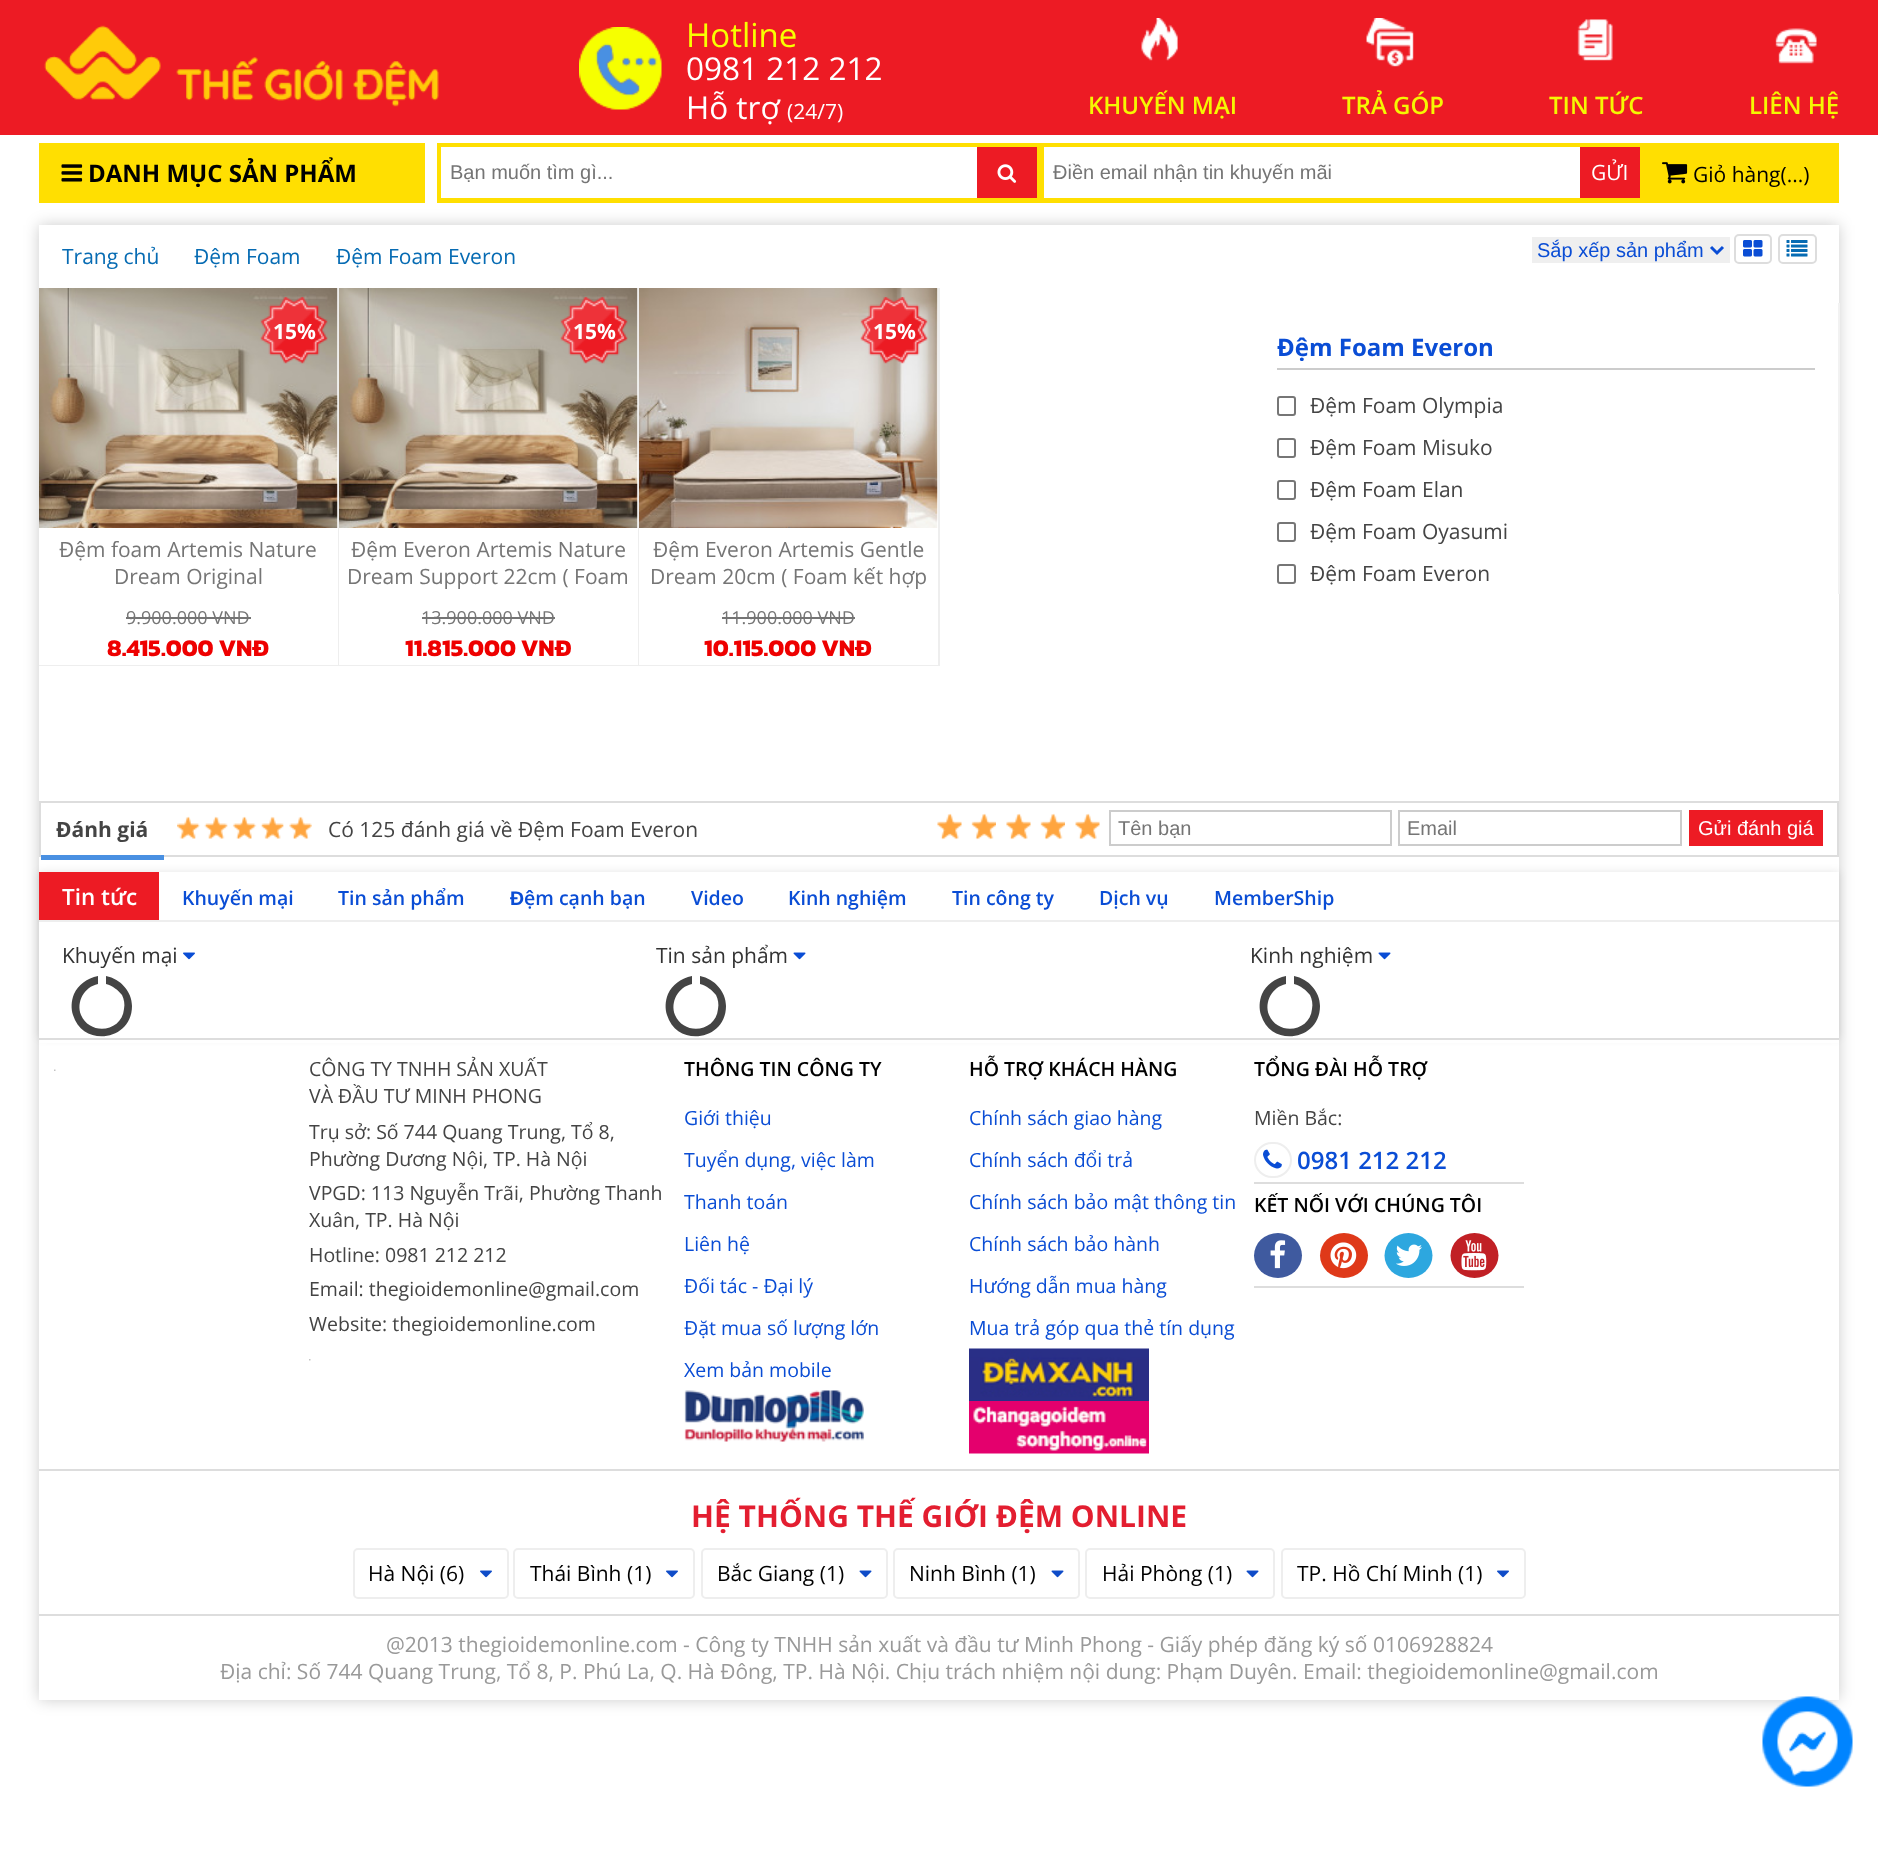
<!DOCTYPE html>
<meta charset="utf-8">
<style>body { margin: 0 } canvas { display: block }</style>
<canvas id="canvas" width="1878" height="1864"></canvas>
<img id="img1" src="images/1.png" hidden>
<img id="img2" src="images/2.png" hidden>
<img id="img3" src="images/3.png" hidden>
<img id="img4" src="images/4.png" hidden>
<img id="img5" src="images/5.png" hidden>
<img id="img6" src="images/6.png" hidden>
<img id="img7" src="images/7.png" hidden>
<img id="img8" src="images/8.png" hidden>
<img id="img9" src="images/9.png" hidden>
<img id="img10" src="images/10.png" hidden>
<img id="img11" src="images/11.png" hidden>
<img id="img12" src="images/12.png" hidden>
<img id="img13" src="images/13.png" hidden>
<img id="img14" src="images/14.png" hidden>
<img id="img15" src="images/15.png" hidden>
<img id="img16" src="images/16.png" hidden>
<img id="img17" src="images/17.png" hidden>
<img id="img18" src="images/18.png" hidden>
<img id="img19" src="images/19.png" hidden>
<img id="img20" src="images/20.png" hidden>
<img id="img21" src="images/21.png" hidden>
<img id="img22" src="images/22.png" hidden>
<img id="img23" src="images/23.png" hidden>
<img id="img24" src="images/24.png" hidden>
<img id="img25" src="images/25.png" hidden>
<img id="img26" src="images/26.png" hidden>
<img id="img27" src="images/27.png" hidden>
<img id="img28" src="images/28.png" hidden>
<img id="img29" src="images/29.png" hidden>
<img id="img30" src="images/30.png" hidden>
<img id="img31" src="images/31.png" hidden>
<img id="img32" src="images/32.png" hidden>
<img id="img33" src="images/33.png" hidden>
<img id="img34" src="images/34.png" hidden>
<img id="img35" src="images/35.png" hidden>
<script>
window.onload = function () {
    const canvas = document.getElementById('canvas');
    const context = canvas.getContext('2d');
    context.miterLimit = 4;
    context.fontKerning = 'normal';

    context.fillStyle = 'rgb(255, 255, 255)';
    context.fillRect(0, 0, 1878, 1864);
    context.fillStyle = 'rgb(237, 27, 36)';
    context.fillRect(0, 0, 1878, 135);
    context.drawImage(document.getElementById('img1'), 44, 25, 395, 82);
    context.drawImage(document.getElementById('img2'), 579, 27, 83, 83);
    context.drawImage(document.getElementById('img3'), 1141, 18, 37, 43);
    context.drawImage(document.getElementById('img4'), 1366, 18, 48, 49);
    context.drawImage(document.getElementById('img5'), 1577, 19, 36, 42);
    context.drawImage(document.getElementById('img6'), 1775, 28, 42, 36);
    context.save();
    context.beginPath();
    context.moveTo(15, 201);
    context.lineTo(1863, 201);
    context.lineTo(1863, 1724);
    context.lineTo(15, 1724);
    context.closePath();
    context.moveTo(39, 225);
    context.lineTo(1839, 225);
    context.lineTo(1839, 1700);
    context.lineTo(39, 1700);
    context.closePath();
    context.clip('evenodd');
    context.fillStyle = 'rgba(0, 0, 0, 0.2)';
    context.filter = 'blur(7.5px)';
    context.beginPath();
    context.rect(39, 225, 1800, 1475);
    context.fill();
    context.filter = 'none';
    context.restore();
    context.fillStyle = 'rgb(255, 223, 1)';
    context.fillRect(39, 143, 386, 60);
    context.drawImage(document.getElementById('img7'), 61, 164, 22, 18);
    context.fillRect(437, 143, 1402, 60);
    context.fillStyle = 'rgb(255, 255, 255)';
    context.fillRect(441, 147, 536, 51);
    context.fillStyle = 'rgb(237, 27, 36)';
    context.fillRect(977, 147, 60, 51);
    context.drawImage(document.getElementById('img8'), 997, 164, 20, 19);
    context.fillStyle = 'rgb(255, 255, 255)';
    context.fillRect(1044, 147, 536, 51);
    context.fillStyle = 'rgb(237, 27, 36)';
    context.fillRect(1580, 147, 60, 51);
    context.drawImage(document.getElementById('img9'), 1662, 162, 26, 22);
    context.fillStyle = 'rgb(239, 239, 239)';
    context.fillRect(1532, 237, 198, 26);
    context.beginPath();
    context.moveTo(1711, 247);
    context.lineTo(1717, 253);
    context.lineTo(1723, 247);
    context.strokeStyle = 'rgb(10, 77, 213)';
    context.lineWidth = 3;
    context.stroke();
    context.beginPath();
    context.roundRect(1735, 235, 36, 28, 4);
    context.strokeStyle = 'rgb(221, 221, 221)';
    context.lineWidth = 2;
    context.stroke();
    context.drawImage(document.getElementById('img10'), 1743, 240, 20, 17);
    context.beginPath();
    context.roundRect(1779, 235, 37, 28, 4);
    context.stroke();
    context.drawImage(document.getElementById('img11'), 1786, 240, 22, 17);
    context.fillStyle = 'rgb(238, 238, 238)';
    context.fillRect(338, 288, 1, 378);
    context.drawImage(document.getElementById('img12'), 39, 288, 299, 240);
    context.drawImage(document.getElementById('img13'), 260, 297, 68, 67);
    context.fillRect(39, 665, 299, 1);
    context.fillRect(638, 288, 1, 378);
    context.drawImage(document.getElementById('img12'), 339, 288, 299, 240);
    context.drawImage(document.getElementById('img14'), 560, 297, 68, 67);
    context.fillRect(339, 665, 299, 1);
    context.fillRect(938, 288, 2, 378);
    context.drawImage(document.getElementById('img15'), 639, 288, 299, 240);
    context.drawImage(document.getElementById('img16'), 860, 297, 68, 67);
    context.fillRect(639, 665, 299, 1);
    context.fillStyle = 'rgb(242, 242, 242)';
    context.fillRect(1838, 303, 2, 291);
    context.fillStyle = 'rgb(204, 204, 204)';
    context.fillRect(1277, 368, 538, 2);
    context.beginPath();
    context.roundRect(1278, 397, 17, 18, 2);
    context.strokeStyle = 'rgb(118, 118, 118)';
    context.stroke();
    context.beginPath();
    context.roundRect(1278, 439, 17, 18, 2);
    context.stroke();
    context.beginPath();
    context.roundRect(1278, 481, 17, 18, 2);
    context.stroke();
    context.beginPath();
    context.roundRect(1278, 523, 17, 18, 2);
    context.stroke();
    context.beginPath();
    context.roundRect(1278, 565, 17, 18, 2);
    context.stroke();
    context.strokeStyle = 'rgb(221, 221, 221)';
    context.strokeRect(40, 802, 1798, 54);
    context.fillStyle = 'rgb(73, 144, 226)';
    context.fillRect(41, 855, 123, 5);
    context.drawImage(document.getElementById('img17'), 177, 816, 135, 23);
    context.drawImage(document.getElementById('img18'), 937, 813, 25, 27);
    context.drawImage(document.getElementById('img19'), 971, 813, 25, 27);
    context.drawImage(document.getElementById('img18'), 1006, 813, 25, 27);
    context.drawImage(document.getElementById('img19'), 1040, 813, 25, 27);
    context.drawImage(document.getElementById('img20'), 1075, 813, 25, 27);
    context.strokeStyle = 'rgb(204, 204, 204)';
    context.strokeRect(1110, 811, 281, 34);
    context.strokeRect(1399, 811, 282, 34);
    context.fillStyle = 'rgb(237, 27, 36)';
    context.fillRect(1689, 810, 134, 36);
    context.save();
    context.beginPath();
    context.moveTo(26, 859);
    context.lineTo(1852, 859);
    context.lineTo(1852, 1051);
    context.lineTo(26, 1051);
    context.closePath();
    context.moveTo(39, 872);
    context.lineTo(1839, 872);
    context.lineTo(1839, 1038);
    context.lineTo(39, 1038);
    context.closePath();
    context.clip('evenodd');
    context.fillStyle = 'rgba(0, 0, 0, 0.1)';
    context.filter = 'blur(4px)';
    context.beginPath();
    context.rect(39, 872, 1800, 166);
    context.fill();
    context.filter = 'none';
    context.restore();
    context.fillStyle = 'rgb(238, 238, 238)';
    context.fillRect(39, 920, 1800, 2);
    context.fillStyle = 'rgb(237, 27, 36)';
    context.fillRect(39, 872, 120, 48);
    context.drawImage(document.getElementById('img21'), 183, 952, 12, 8);
    context.drawImage(document.getElementById('img22'), 793, 952, 13, 8);
    context.drawImage(document.getElementById('img22'), 1378, 952, 13, 8);
    context.fillStyle = 'rgb(68, 68, 68)';
    context.beginPath();
    context.moveTo(132, 1006);
    context.bezierCurveTo(132, 1041, 83, 1048, 73, 1015);
    context.bezierCurveTo(71, 1009, 71, 1001, 74, 994);
    context.bezierCurveTo(78, 985, 87, 978, 98, 976);
    context.lineTo(98, 984);
    context.bezierCurveTo(84, 987, 76, 1002, 81, 1015);
    context.bezierCurveTo(90, 1036, 122, 1032, 124, 1009);
    context.bezierCurveTo(125, 1004, 124, 999, 122, 995);
    context.bezierCurveTo(118, 990, 113, 986, 106, 984);
    context.lineTo(106, 976);
    context.bezierCurveTo(121, 979, 132, 992, 132, 1006);
    context.closePath();
    context.fill();
    context.beginPath();
    context.moveTo(726, 1006);
    context.bezierCurveTo(726, 1041, 677, 1048, 667, 1015);
    context.bezierCurveTo(665, 1009, 665, 1001, 668, 994);
    context.bezierCurveTo(672, 985, 681, 978, 692, 976);
    context.lineTo(692, 984);
    context.bezierCurveTo(678, 987, 670, 1002, 675, 1015);
    context.bezierCurveTo(684, 1036, 716, 1032, 718, 1009);
    context.bezierCurveTo(719, 1004, 718, 999, 716, 995);
    context.bezierCurveTo(712, 990, 707, 986, 700, 984);
    context.lineTo(700, 976);
    context.bezierCurveTo(715, 979, 726, 992, 726, 1006);
    context.closePath();
    context.fill();
    context.beginPath();
    context.moveTo(1320, 1006);
    context.bezierCurveTo(1320, 1041, 1271, 1048, 1261, 1015);
    context.bezierCurveTo(1259, 1009, 1259, 1001, 1262, 994);
    context.bezierCurveTo(1266, 985, 1275, 978, 1286, 976);
    context.lineTo(1286, 984);
    context.bezierCurveTo(1272, 987, 1264, 1002, 1269, 1015);
    context.bezierCurveTo(1278, 1036, 1310, 1032, 1312, 1009);
    context.bezierCurveTo(1313, 1004, 1312, 999, 1310, 995);
    context.bezierCurveTo(1306, 990, 1301, 986, 1294, 984);
    context.lineTo(1294, 976);
    context.bezierCurveTo(1309, 979, 1320, 992, 1320, 1006);
    context.closePath();
    context.fill();
    context.fillStyle = 'rgb(255, 255, 255)';
    context.fillRect(39, 1040, 1800, 3);
    context.fillStyle = 'rgb(221, 221, 221)';
    context.fillRect(39, 1038, 1800, 2);
    context.fillRect(39, 1469, 1800, 2);
    context.drawImage(document.getElementById('img23'), 54, 1069, 2, 2);
    context.drawImage(document.getElementById('img24'), 309, 1359, 2, 2);
    context.drawImage(document.getElementById('img25'), 684, 1390, 180, 52);
    context.drawImage(document.getElementById('img26'), 969, 1348, 180, 53);
    context.drawImage(document.getElementById('img27'), 969, 1401, 180, 53);
    context.beginPath();
    context.roundRect(1255, 1143, 36, 34, 17);
    context.strokeStyle = 'rgb(238, 238, 238)';
    context.stroke();
    context.drawImage(document.getElementById('img28'), 1263, 1149, 19, 20);
    context.fillRect(1254, 1182, 270, 2);
    context.fillStyle = 'rgb(63, 90, 159)';
    context.beginPath();
    context.ellipse(1278, 1255.5, 24, 22.5, 0, 0, 2 * Math.PI);
    context.fill();
    context.drawImage(document.getElementById('img29'), 1270, 1240, 16, 29);
    context.fillStyle = 'rgb(223, 57, 25)';
    context.beginPath();
    context.ellipse(1344, 1255.5, 24, 22.5, 0, 0, 2 * Math.PI);
    context.fill();
    context.drawImage(document.getElementById('img30'), 1330, 1242, 27, 27);
    context.fillStyle = 'rgb(45, 167, 223)';
    context.beginPath();
    context.ellipse(1408.5, 1255.5, 24, 22.5, 0, 0, 2 * Math.PI);
    context.fill();
    context.drawImage(document.getElementById('img31'), 1396, 1244, 26, 22);
    context.fillStyle = 'rgb(193, 32, 37)';
    context.beginPath();
    context.ellipse(1474.5, 1255.5, 24, 22.5, 0, 0, 2 * Math.PI);
    context.fill();
    context.drawImage(document.getElementById('img32'), 1461, 1240, 26, 31);
    context.fillStyle = 'rgb(221, 221, 221)';
    context.fillRect(1254, 1286, 270, 2);
    context.beginPath();
    context.roundRect(354, 1549, 154, 49, 4);
    context.stroke();
    context.drawImage(document.getElementById('img33'), 480, 1570, 12, 8);
    context.beginPath();
    context.roundRect(514, 1549, 180, 49, 4);
    context.stroke();
    context.drawImage(document.getElementById('img33'), 666, 1570, 12, 8);
    context.beginPath();
    context.roundRect(702, 1549, 185, 49, 4);
    context.stroke();
    context.drawImage(document.getElementById('img34'), 859, 1570, 13, 8);
    context.beginPath();
    context.roundRect(894, 1549, 185, 49, 4);
    context.stroke();
    context.drawImage(document.getElementById('img34'), 1051, 1570, 13, 8);
    context.beginPath();
    context.roundRect(1086, 1549, 188, 49, 4);
    context.stroke();
    context.drawImage(document.getElementById('img34'), 1246, 1570, 13, 8);
    context.beginPath();
    context.roundRect(1282, 1549, 243, 49, 4);
    context.stroke();
    context.drawImage(document.getElementById('img33'), 1497, 1570, 12, 8);
    context.fillRect(39, 1614, 1800, 2);
    context.drawImage(document.getElementById('img35'), 1762, 1696, 91, 91);
    context.font = '33px Open Sans';
    context.fillStyle = 'rgb(248, 255, 1)';
    context.fillText('Hotline', 686, 47);
    context.font = '31.5px Open Sans';
    context.fillStyle = 'rgb(255, 255, 255)';
    context.fillText('0981 212 212', 686, 80);
    context.fillText('Hỗ trợ', 686, 119);
    context.font = '21px Open Sans';
    context.fillText('(24/7)', 787, 119);
    context.font = '600 24px Open Sans';
    context.fillStyle = 'rgb(245, 247, 2)';
    context.fillText('KHUYẾN MẠI', 1088, 114);
    context.fillText('TRẢ GÓP', 1342, 114);
    context.fillText('TIN TỨC', 1549, 114);
    context.fillText('LIÊN HỆ', 1749, 114);
    context.font = 'bold 24px Open Sans';
    context.fillStyle = 'rgb(0, 0, 0)';
    context.fillText('DANH MỤC SẢN PHẨM', 88, 182);
    context.font = '20px Liberation Sans';
    context.fillStyle = 'rgb(117, 117, 117)';
    context.fillText('Bạn muốn tìm gì...', 450, 179);
    context.fillText('Điền email nhận tin khuyến mãi', 1053, 179);
    context.font = '21px Open Sans';
    context.fillStyle = 'rgb(255, 255, 255)';
    context.fillText('GỬI', 1591, 180);
    context.fillStyle = 'rgb(0, 0, 0)';
    context.fillText('Giỏ hàng(...)', 1693, 182);
    context.fillStyle = 'rgb(6, 107, 179)';
    context.fillText('Trang chủ', 62, 264);
    context.fillText('Đệm Foam', 194, 264);
    context.fillText('Đệm Foam Everon', 336, 264);
    context.font = '20px Liberation Sans';
    context.fillStyle = 'rgb(10, 77, 213)';
    context.fillText('Sắp xếp sản phẩm', 1537, 257);
    context.font = 'bold 21px Open Sans';
    context.fillStyle = 'rgb(255, 255, 255)';
    context.fillText('15%', 273, 339);
    context.font = '21px Open Sans';
    context.fillStyle = 'rgb(117, 117, 117)';
    context.fillText('Đệm foam Artemis Nature', 59, 557);
    context.fillText('Dream Original', 114, 584);
    context.font = '18px Open Sans';
    context.fillText('9.900.000 VNĐ', 126, 624);
    context.fillStyle = 'rgb(116, 116, 116)';
    context.fillRect(126, 617, 125, 2);
    context.font = 'bold 24px Kanit';
    context.fillStyle = 'rgb(238, 0, 0)';
    context.fillText('8.415.000 VNĐ', 107, 656);
    context.font = 'bold 21px Open Sans';
    context.fillStyle = 'rgb(255, 255, 255)';
    context.fillText('15%', 573, 339);
    context.font = '21px Open Sans';
    context.fillStyle = 'rgb(117, 117, 117)';
    context.fillText('Đệm Everon Artemis Nature', 351, 557);
    context.fillText('Dream Support 22cm ( Foam', 347, 584);
    context.font = '18px Open Sans';
    context.fillText('13.900.000 VNĐ', 421, 624);
    context.fillStyle = 'rgb(116, 116, 116)';
    context.fillRect(422, 617, 133, 2);
    context.font = 'bold 24px Kanit';
    context.fillStyle = 'rgb(238, 0, 0)';
    context.fillText('11.815.000 VNĐ', 405, 656);
    context.font = 'bold 21px Open Sans';
    context.fillStyle = 'rgb(255, 255, 255)';
    context.fillText('15%', 873, 339);
    context.font = '21px Open Sans';
    context.fillStyle = 'rgb(117, 117, 117)';
    context.fillText('Đệm Everon Artemis Gentle', 653, 557);
    context.fillText('Dream 20cm ( Foam kết hợp', 650, 584);
    context.font = '18px Open Sans';
    context.fillText('11.900.000 VNĐ', 721, 624);
    context.fillStyle = 'rgb(116, 116, 116)';
    context.fillRect(722, 617, 133, 2);
    context.font = 'bold 24px Kanit';
    context.fillStyle = 'rgb(238, 0, 0)';
    context.fillText('10.115.000 VNĐ', 704, 656);
    context.font = 'bold 24px Open Sans';
    context.fillStyle = 'rgb(10, 77, 213)';
    context.fillText('Đệm Foam Everon', 1277, 356);
    context.font = '21px Open Sans';
    context.fillStyle = 'rgb(68, 68, 68)';
    context.fillText('Đệm Foam Olympia', 1310, 413);
    context.fillText('Đệm Foam Misuko', 1310, 455);
    context.fillText('Đệm Foam Elan', 1310, 497);
    context.fillText('Đệm Foam Oyasumi', 1310, 539);
    context.fillText('Đệm Foam Everon', 1310, 581);
    context.font = 'bold 21px Open Sans';
    context.fillText('Đánh giá', 56, 837);
    context.font = '21px Open Sans';
    context.fillText('Có 125 đánh giá về Đệm Foam Everon', 328, 837);
    context.font = '20px Liberation Sans';
    context.fillStyle = 'rgb(117, 117, 117)';
    context.fillText('Tên bạn', 1118, 835);
    context.fillText('Email', 1407, 835);
    context.fillStyle = 'rgb(255, 255, 255)';
    context.fillText('Gửi đánh giá', 1698, 835);
    context.font = '600 22.5px Open Sans';
    context.fillText('Tin tức', 62, 905);
    context.font = '600 19.5px Open Sans';
    context.fillStyle = 'rgb(10, 77, 213)';
    context.fillText('Khuyến mại', 182, 905);
    context.fillText('Tin sản phẩm', 338, 905);
    context.font = 'bold 19.5px Liberation Sans';
    context.fillText('Đ', 510, 905);
    context.font = '600 19.5px Open Sans';
    context.fillText('ệm cạnh bạn', 524, 905);
    context.fillText('Video', 691, 905);
    context.fillText('Kinh nghiệm', 788, 905);
    context.fillText('Tin công ty', 952, 905);
    context.fillText('Dịch vụ', 1099, 905);
    context.fillText('MemberShip', 1214, 905);
    context.font = '21px Open Sans';
    context.fillStyle = 'rgb(51, 51, 51)';
    context.fillText('Khuyến mại', 62, 963);
    context.fillText('Tin sản phẩm', 656, 963);
    context.fillText('Kinh nghiệm', 1250, 963);
    context.font = '19.5px Open Sans';
    context.fillStyle = 'rgb(68, 68, 68)';
    context.fillText('CÔNG TY TNHH SẢN XUẤT', 309, 1076);
    context.fillText('VÀ ĐẦU TƯ MINH PHONG', 309, 1103);
    context.fillText('Trụ sở: Số 744 Quang Trung, Tổ 8,', 309, 1139);
    context.fillText('Phường Dương Nội, TP. Hà Nội', 309, 1166);
    context.fillText('VPGD: 113 Nguyễn Trãi, Phường Thanh', 309, 1200);
    context.fillText('Xuân, TP. Hà Nội', 309, 1227);
    context.fillText('Hotline: 0981 212 212', 309, 1262);
    context.fillText('Email: thegioidemonline@gmail.com', 309, 1296);
    context.fillText('Website: thegioidemonline.com', 309, 1331);
    context.font = '600 19.5px Open Sans';
    context.fillStyle = 'rgb(0, 0, 0)';
    context.fillText('THÔNG TIN CÔNG TY', 684, 1076);
    context.font = '19.5px Open Sans';
    context.fillStyle = 'rgb(10, 77, 213)';
    context.fillText('Giới thiệu', 684, 1125);
    context.fillText('Tuyển dụng, việc làm', 684, 1167);
    context.fillText('Thanh toán', 684, 1209);
    context.fillText('Liên hệ', 684, 1251);
    context.fillText('Đối tác - Đại lý', 684, 1293);
    context.fillText('Đặt mua số lượng lớn', 684, 1335);
    context.fillText('Xem bản mobile', 684, 1377);
    context.font = '600 19.5px Open Sans';
    context.fillStyle = 'rgb(0, 0, 0)';
    context.fillText('HỖ TRỢ KHÁCH HÀNG', 969, 1076);
    context.font = '19.5px Open Sans';
    context.fillStyle = 'rgb(10, 77, 213)';
    context.fillText('Chính sách giao hàng', 969, 1125);
    context.fillText('Chính sách đổi trả', 969, 1167);
    context.fillText('Chính sách bảo mật thông tin', 969, 1209);
    context.fillText('Chính sách bảo hành', 969, 1251);
    context.fillText('Hướng dẫn mua hàng', 969, 1293);
    context.fillText('Mua trả góp qua thẻ tín dụng', 969, 1335);
    context.font = '600 19.5px Open Sans';
    context.fillStyle = 'rgb(0, 0, 0)';
    context.fillText('TỔNG ĐÀI HỖ TRỢ', 1254, 1076);
    context.font = '19.5px Open Sans';
    context.fillStyle = 'rgb(68, 68, 68)';
    context.fillText('Miền Bắc:', 1254, 1125);
    context.font = '600 24px Open Sans';
    context.fillStyle = 'rgb(10, 77, 213)';
    context.fillText('0981 212 212', 1297, 1169);
    context.font = '600 19.5px Open Sans';
    context.fillStyle = 'rgb(0, 0, 0)';
    context.fillText('KẾT NỐI VỚI CHÚNG TÔI', 1254, 1212);
    context.font = 'bold 30px Open Sans';
    context.fillStyle = 'rgb(227, 30, 48)';
    context.fillText('HỆ THỐNG THẾ GIỚI ĐỆM ONLINE', 691, 1527);
    context.font = '21px Open Sans';
    context.fillStyle = 'rgb(0, 0, 0)';
    context.fillText('Hà Nội (6)', 368, 1581);
    context.fillText('Thái Bình (1)', 530, 1581);
    context.fillText('Bắc Giang (1)', 717, 1581);
    context.fillText('Ninh Bình (1)', 909, 1581);
    context.fillText('Hải Phòng (1)', 1102, 1581);
    context.fillText('TP. Hồ Chí Minh (1)', 1297, 1581);
    context.fillStyle = 'rgb(153, 153, 153)';
    context.fillText('@2013 thegioidemonline.com - Công ty TNHH sản xuất và đầu tư Minh Phong - Giấy phép đăng ký số 0106928824', 386, 1652);
    context.fillText('Địa chỉ: Số 744 Quang Trung, Tổ 8, P. Phú La, Q. Hà Đông, TP. Hà Nội. Chịu trách nhiệm nội dung: Phạm Duyên. Email: thegioidemonline@gmail.com', 220, 1679);
};
</script>
